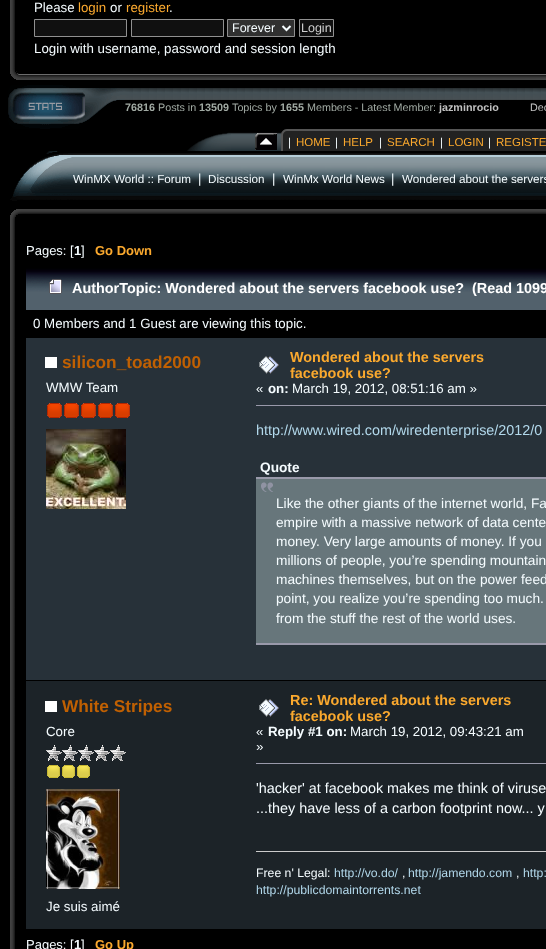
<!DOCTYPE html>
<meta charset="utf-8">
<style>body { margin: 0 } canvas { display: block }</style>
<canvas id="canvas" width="546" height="949"></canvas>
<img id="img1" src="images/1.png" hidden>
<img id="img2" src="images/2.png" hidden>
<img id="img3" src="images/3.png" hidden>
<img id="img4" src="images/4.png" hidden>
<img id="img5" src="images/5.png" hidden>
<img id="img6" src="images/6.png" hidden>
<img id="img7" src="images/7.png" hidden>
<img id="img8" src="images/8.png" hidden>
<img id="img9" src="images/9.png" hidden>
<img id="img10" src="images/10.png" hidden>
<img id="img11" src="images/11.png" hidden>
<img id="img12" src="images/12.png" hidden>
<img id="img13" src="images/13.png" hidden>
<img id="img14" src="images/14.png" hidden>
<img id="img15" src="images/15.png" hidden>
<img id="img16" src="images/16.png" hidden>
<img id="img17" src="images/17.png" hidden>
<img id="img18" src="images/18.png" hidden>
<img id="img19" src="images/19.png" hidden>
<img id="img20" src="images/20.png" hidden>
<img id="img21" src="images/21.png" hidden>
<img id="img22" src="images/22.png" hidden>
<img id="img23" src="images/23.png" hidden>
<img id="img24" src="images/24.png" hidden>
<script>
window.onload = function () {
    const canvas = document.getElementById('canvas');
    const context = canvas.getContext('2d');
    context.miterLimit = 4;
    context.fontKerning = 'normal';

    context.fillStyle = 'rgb(0, 0, 0)';
    context.fillRect(0, 0, 546, 949);
    context.drawImage(document.getElementById('img1'), 10, 0, 5, 69);
    context.fillStyle = 'rgb(16, 16, 16)';
    context.beginPath();
    context.rect(34.5, 19.5, 92, 17);
    context.fill();
    context.strokeStyle = 'rgb(144, 144, 144)';
    context.stroke();
    context.beginPath();
    context.rect(131.5, 19.5, 92, 17);
    context.fill();
    context.stroke();
    context.fillStyle = 'rgb(48, 48, 48)';
    context.beginPath();
    context.rect(227.5, 19.5, 67, 17);
    context.fill();
    context.stroke();
    context.beginPath();
    context.moveTo(282.5, 26);
    context.lineTo(286.5, 30);
    context.lineTo(290.5, 26);
    context.strokeStyle = 'rgb(245, 252, 255)';
    context.lineWidth = 2;
    context.stroke();
    context.fillStyle = 'rgb(16, 16, 16)';
    context.beginPath();
    context.rect(299.5, 19.5, 34, 17);
    context.fill();
    context.strokeStyle = 'rgb(144, 144, 144)';
    context.lineWidth = 1;
    context.stroke();
    context.drawImage(document.getElementById('img2'), 10, 69, 13, 11);
    context.drawImage(document.getElementById('img3'), 23, 74, 523, 6);
    context.drawImage(document.getElementById('img4'), 8, 85, 117, 44);
    context.drawImage(document.getElementById('img5'), 125, 88, 421, 12);
    context.drawImage(document.getElementById('img6'), 139, 129, 148, 22);
    context.drawImage(document.getElementById('img7'), 139, 132, 92, 19);
    context.drawImage(document.getElementById('img8'), 255, 133, 22, 17);
    context.fillStyle = 'rgb(34, 34, 34)';
    context.beginPath();
    context.moveTo(287, 129);
    context.lineTo(546, 129);
    context.bezierCurveTo(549.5, 129, 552, 131.5, 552, 135);
    context.lineTo(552, 151);
    context.lineTo(281, 151);
    context.lineTo(281, 135);
    context.bezierCurveTo(281, 131.5, 283.5, 129, 287, 129);
    context.closePath();
    context.fill();
    context.fillStyle = 'rgb(85, 85, 85)';
    context.beginPath();
    context.moveTo(287, 129);
    context.lineTo(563, 129);
    context.bezierCurveTo(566, 129, 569, 132, 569, 135);
    context.lineTo(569, 151);
    context.lineTo(281, 151);
    context.lineTo(281, 135);
    context.bezierCurveTo(281, 132, 284, 129, 287, 129);
    context.closePath();
    context.moveTo(287, 131);
    context.lineTo(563, 131);
    context.bezierCurveTo(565, 131, 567, 133, 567, 135);
    context.lineTo(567, 151);
    context.lineTo(283, 151);
    context.lineTo(283, 135);
    context.bezierCurveTo(283, 133, 285, 131, 287, 131);
    context.closePath();
    context.fill('evenodd');
    context.drawImage(document.getElementById('img9'), 10, 151, 63, 50);
    context.drawImage(document.getElementById('img10'), 73, 153, 473, 47);
    context.drawImage(document.getElementById('img11'), 10, 209, 13, 12);
    context.drawImage(document.getElementById('img12'), 23, 209, 523, 5);
    context.drawImage(document.getElementById('img13'), 10, 221, 5, 728);
    context.drawImage(document.getElementById('img14'), 26, 268, 520, 42);
    context.drawImage(document.getElementById('img15'), 35, 268, 511, 39);
    context.drawImage(document.getElementById('img16'), 49, 279, 13, 15);
    context.fillStyle = 'rgb(39, 49, 57)';
    context.fillRect(26, 338, 520, 342);
    context.fillStyle = 'rgb(255, 255, 255)';
    context.fillRect(45, 357, 12, 11);
    context.drawImage(document.getElementById('img17'), 47, 403, 15, 15);
    context.drawImage(document.getElementById('img17'), 64, 403, 15, 15);
    context.drawImage(document.getElementById('img17'), 81, 403, 15, 15);
    context.drawImage(document.getElementById('img17'), 98, 403, 15, 15);
    context.drawImage(document.getElementById('img17'), 115, 403, 15, 15);
    context.drawImage(document.getElementById('img18'), 46, 429, 80, 80);
    context.drawImage(document.getElementById('img19'), 259, 356, 20, 18);
    context.fillStyle = 'rgb(153, 153, 170)';
    context.fillRect(256, 405, 290, 1);
    context.fillStyle = 'rgb(103, 118, 123)';
    context.fillRect(256, 479, 290, 164);
    context.drawImage(document.getElementById('img20'), 261, 482, 12, 10);
    context.fillStyle = 'rgb(153, 153, 170)';
    context.fillRect(256, 477, 290, 2);
    context.fillRect(256, 643, 290, 2);
    context.fillStyle = 'rgb(28, 35, 40)';
    context.fillRect(26, 681, 520, 248);
    context.fillStyle = 'rgb(255, 255, 255)';
    context.fillRect(45, 701, 12, 11);
    context.drawImage(document.getElementById('img21'), 46, 745, 16, 16);
    context.drawImage(document.getElementById('img21'), 62, 745, 16, 16);
    context.drawImage(document.getElementById('img21'), 78, 745, 16, 16);
    context.drawImage(document.getElementById('img21'), 94, 745, 16, 16);
    context.drawImage(document.getElementById('img21'), 110, 745, 16, 16);
    context.drawImage(document.getElementById('img22'), 47, 765, 13, 13);
    context.drawImage(document.getElementById('img22'), 62, 765, 13, 13);
    context.drawImage(document.getElementById('img22'), 77, 765, 13, 13);
    context.drawImage(document.getElementById('img23'), 46, 789, 74, 100);
    context.drawImage(document.getElementById('img24'), 259, 699, 20, 18);
    context.fillStyle = 'rgb(153, 153, 170)';
    context.fillRect(256, 763, 290, 1);
    context.fillStyle = 'rgb(204, 204, 204)';
    context.fillRect(256, 851, 290, 1);
    context.font = '13.3px Liberation Sans';
    context.fillStyle = 'rgb(245, 252, 255)';
    context.fillText('Please', 34, 12);
    context.fillStyle = 'rgb(251, 169, 46)';
    context.fillText('login', 78, 12);
    context.fillStyle = 'rgb(245, 252, 255)';
    context.fillText('or', 110, 12);
    context.fillStyle = 'rgb(251, 169, 46)';
    context.fillText('register', 126, 12);
    context.fillStyle = 'rgb(245, 252, 255)';
    context.fillText('.', 169, 12);
    context.font = '12.5px Liberation Sans';
    context.fillText('Forever', 232, 32);
    context.fillStyle = 'rgb(208, 208, 208)';
    context.fillText('Login', 301, 32);
    context.font = '13.3px Liberation Sans';
    context.fillStyle = 'rgb(245, 252, 255)';
    context.fillText('Login with username, password and session length', 34, 53);
    context.font = 'bold 10.75px Liberation Sans';
    context.fillStyle = 'rgb(161, 170, 163)';
    context.fillText('76816', 125, 111);
    context.font = '10.75px Liberation Sans';
    context.fillText('Posts in', 158, 111);
    context.font = 'bold 10.75px Liberation Sans';
    context.fillText('13509', 199, 111);
    context.font = '10.75px Liberation Sans';
    context.fillText('Topics by', 232, 111);
    context.font = 'bold 10.75px Liberation Sans';
    context.fillText('1655', 280, 111);
    context.font = '10.75px Liberation Sans';
    context.fillText('Members - Latest Member:', 307, 111);
    context.font = 'bold 10.75px Liberation Sans';
    context.fillStyle = 'rgb(192, 192, 192)';
    context.fillText('jazminrocio', 439, 111);
    context.font = '10.75px Liberation Sans';
    context.fillText('Dec', 530, 111);
    context.font = '11.5px Liberation Sans';
    context.fillStyle = 'rgb(245, 252, 255)';
    context.fillText('|', 288, 146);
    context.fillStyle = 'rgb(251, 169, 46)';
    context.fillText('HOME', 296, 146);
    context.fillStyle = 'rgb(245, 252, 255)';
    context.fillText('|', 335, 146);
    context.fillStyle = 'rgb(251, 169, 46)';
    context.fillText('HELP', 343, 146);
    context.fillStyle = 'rgb(245, 252, 255)';
    context.fillText('|', 379, 146);
    context.fillStyle = 'rgb(251, 169, 46)';
    context.fillText('SEARCH', 387, 146);
    context.fillStyle = 'rgb(245, 252, 255)';
    context.fillText('|', 440, 146);
    context.fillStyle = 'rgb(251, 169, 46)';
    context.fillText('LOGIN', 448, 146);
    context.fillStyle = 'rgb(245, 252, 255)';
    context.fillText('|', 488, 146);
    context.fillStyle = 'rgb(251, 169, 46)';
    context.fillText('REGISTE', 496, 146);
    context.font = '11.7px Liberation Sans';
    context.fillStyle = 'rgb(245, 252, 255)';
    context.fillText('WinMX World :: Forum', 73, 183);
    context.font = '13px Liberation Sans';
    context.fillText('|', 198, 183);
    context.font = '11.7px Liberation Sans';
    context.fillText('Discussion', 208, 183);
    context.font = '13px Liberation Sans';
    context.fillText('|', 272, 183);
    context.font = '11.7px Liberation Sans';
    context.fillText('WinMx World News', 283, 183);
    context.font = '13px Liberation Sans';
    context.fillText('|', 391, 183);
    context.font = '11.7px Liberation Sans';
    context.fillText('Wondered about the servers', 402, 183);
    context.font = '13px Liberation Sans';
    context.fillText('Pages: [', 26, 255);
    context.font = 'bold 13px Liberation Sans';
    context.fillText('1', 74, 255);
    context.font = '13px Liberation Sans';
    context.fillText(']', 81, 255);
    context.font = 'bold 13px Liberation Sans';
    context.fillStyle = 'rgb(251, 169, 46)';
    context.fillText('Go Down', 95, 255);
    context.font = 'bold 14.4px Liberation Sans';
    context.fillStyle = 'rgb(255, 255, 255)';
    context.fillText('AuthorTopic: Wondered about the servers facebook use?  (Read 1099', 72, 293);
    context.font = '13.3px Liberation Sans';
    context.fillStyle = 'rgb(245, 252, 255)';
    context.fillText('0 Members and 1 Guest are viewing this topic.', 33, 328);
    context.font = 'bold 17.25px Liberation Sans';
    context.fillStyle = 'rgb(192, 96, 2)';
    context.fillText('silicon_toad2000', 62, 368);
    context.font = '13.3px Liberation Sans';
    context.fillStyle = 'rgb(245, 252, 255)';
    context.fillText('WMW Team', 46, 392);
    context.font = 'bold 14.4px Liberation Sans';
    context.fillStyle = 'rgb(251, 169, 46)';
    context.fillText('Wondered about the servers', 290, 362);
    context.fillText('facebook use?', 290, 378);
    context.font = '13.3px Liberation Sans';
    context.fillStyle = 'rgb(245, 252, 255)';
    context.fillText('«', 256, 393);
    context.font = 'bold 13.3px Liberation Sans';
    context.fillText('on:', 268, 393);
    context.font = '13.3px Liberation Sans';
    context.fillText('March 19, 2012, 08:51:16 am »', 292, 393);
    context.font = '14.4px Liberation Sans';
    context.fillStyle = 'rgb(178, 216, 235)';
    context.fillText('http://www.wired.com/wiredenterprise/2012/0', 256, 435);
    context.font = 'bold 13.7px Liberation Sans';
    context.fillStyle = 'rgb(245, 252, 255)';
    context.fillText('Quote', 260, 472);
    context.font = '13.7px Liberation Sans';
    context.fillText('Like the other giants of the internet world, Fa', 276, 508);
    context.fillText('empire with a massive network of data cente', 276, 527);
    context.fillText('money. Very large amounts of money. If you', 276, 546);
    context.fillText('millions of people, you’re spending mountain', 276, 565);
    context.fillText('machines themselves, but on the power feed', 276, 584);
    context.fillText('point, you realize you’re spending too much.', 276, 603);
    context.fillText('from the stuff the rest of the world uses.', 276, 623);
    context.font = 'bold 17.25px Liberation Sans';
    context.fillStyle = 'rgb(192, 96, 2)';
    context.fillText('White Stripes', 62, 712);
    context.font = '13.3px Liberation Sans';
    context.fillStyle = 'rgb(245, 252, 255)';
    context.fillText('Core', 46, 736);
    context.fillText('Je suis aimé', 46, 911);
    context.font = 'bold 14.4px Liberation Sans';
    context.fillStyle = 'rgb(251, 169, 46)';
    context.fillText('Re: Wondered about the servers', 290, 705);
    context.fillText('facebook use?', 290, 721);
    context.font = '13.3px Liberation Sans';
    context.fillStyle = 'rgb(245, 252, 255)';
    context.fillText('«', 256, 736);
    context.font = 'bold 13.3px Liberation Sans';
    context.fillText('Reply #1 on:', 268, 736);
    context.font = '13.3px Liberation Sans';
    context.fillText('March 19, 2012, 09:43:21 am', 350, 736);
    context.fillText('»', 256, 751);
    context.font = '14.4px Liberation Sans';
    context.fillText('\'hacker\' at facebook makes me think of viruse', 256, 793);
    context.fillText('...they have less of a carbon footprint now... y', 256, 813);
    context.font = '12.25px Liberation Sans';
    context.fillText('Free n\' Legal:', 256, 877);
    context.fillStyle = 'rgb(178, 216, 235)';
    context.fillText('http://vo.do/', 334, 877);
    context.fillStyle = 'rgb(245, 252, 255)';
    context.fillText(',', 402, 877);
    context.fillStyle = 'rgb(178, 216, 235)';
    context.fillText('http://jamendo.com', 408, 877);
    context.fillStyle = 'rgb(245, 252, 255)';
    context.fillText(',', 516, 877);
    context.fillStyle = 'rgb(178, 216, 235)';
    context.fillText('http:', 523, 877);
    context.fillText('http://publicdomaintorrents.net', 256, 894);
    context.font = '13px Liberation Sans';
    context.fillStyle = 'rgb(245, 252, 255)';
    context.fillText('Pages: [', 26, 949);
    context.font = 'bold 13px Liberation Sans';
    context.fillText('1', 74, 949);
    context.font = '13px Liberation Sans';
    context.fillText(']', 81, 949);
    context.font = 'bold 13px Liberation Sans';
    context.fillStyle = 'rgb(251, 169, 46)';
    context.fillText('Go Up', 95, 949);
};
</script>
